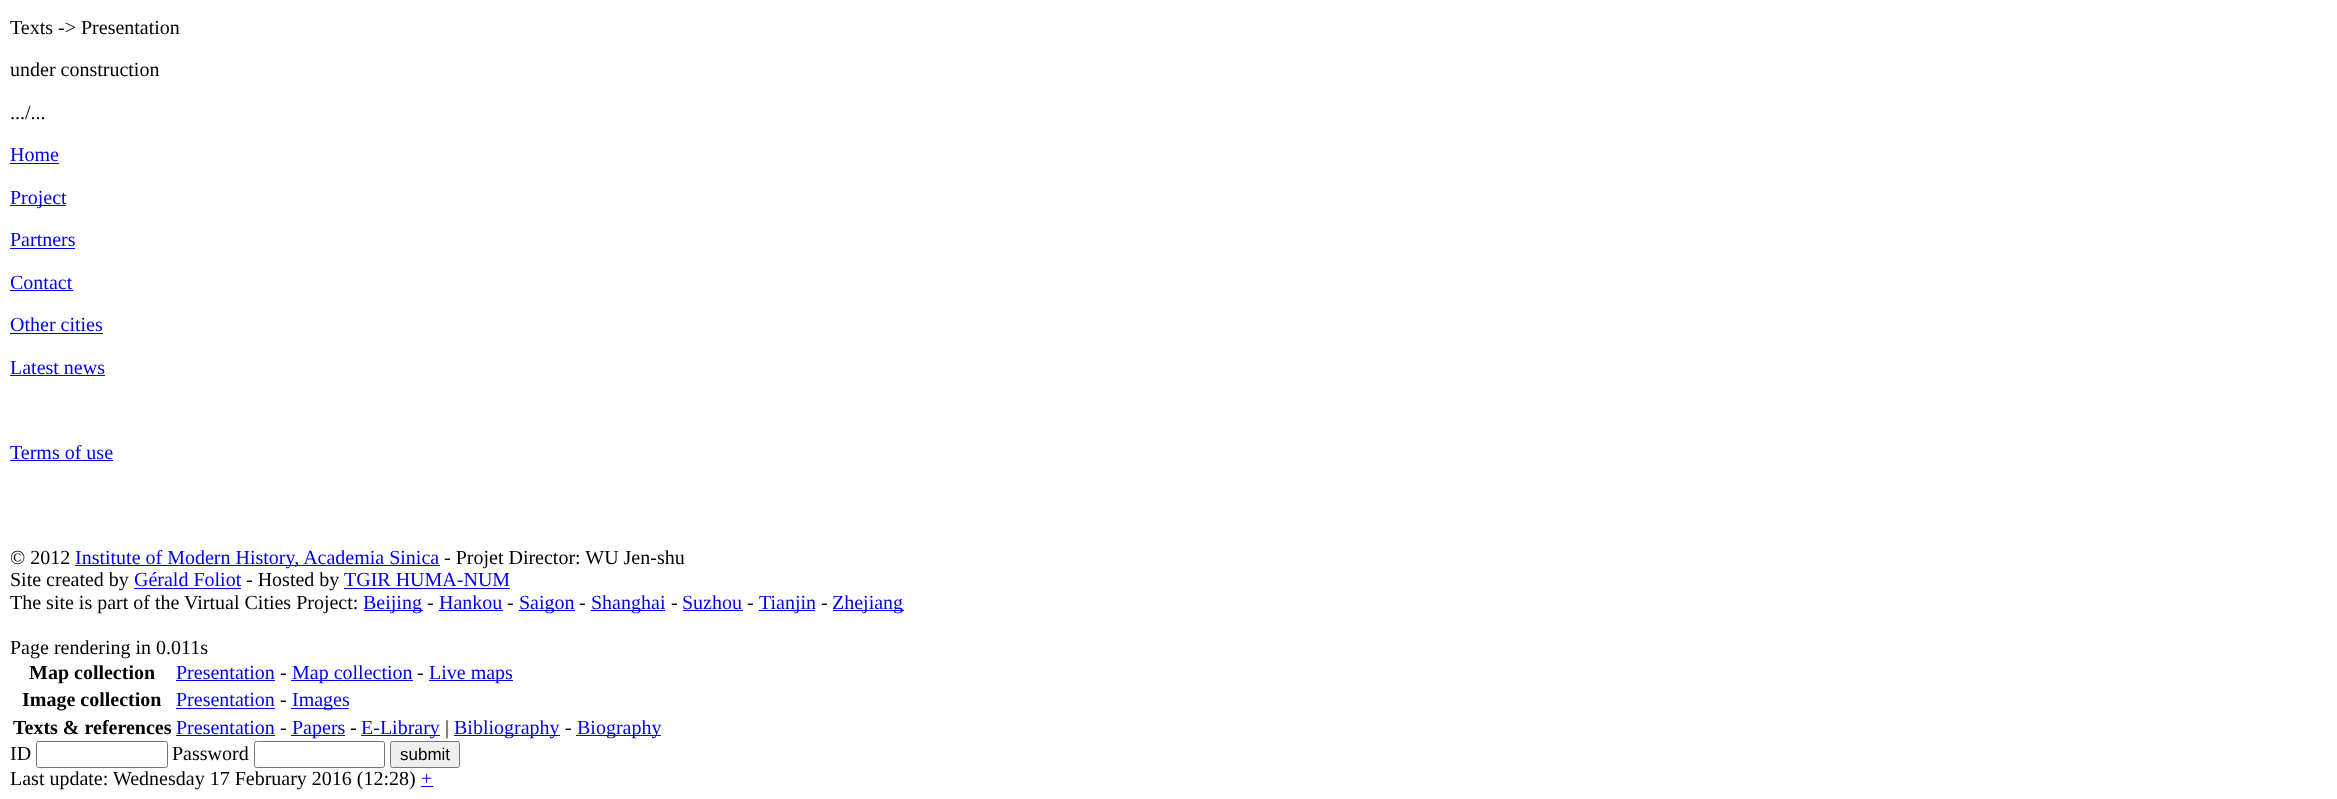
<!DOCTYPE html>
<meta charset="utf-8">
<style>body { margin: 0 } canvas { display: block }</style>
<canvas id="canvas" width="2337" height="799"></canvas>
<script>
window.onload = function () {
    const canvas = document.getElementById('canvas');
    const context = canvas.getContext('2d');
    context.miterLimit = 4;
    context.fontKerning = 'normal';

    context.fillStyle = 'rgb(255, 255, 255)';
    context.fillRect(0, 0, 2337, 799);
    context.fillStyle = 'rgb(0, 0, 238)';
    context.fillRect(10, 163, 49, 1);
    context.fillRect(10, 205, 56, 1);
    context.fillRect(10, 248, 65, 1);
    context.fillRect(10, 290, 63, 1);
    context.fillRect(10, 333, 93, 1);
    context.fillRect(10, 375, 95, 1);
    context.fillRect(10, 460, 103, 1);
    context.fillRect(75, 565, 365, 1);
    context.fillRect(134, 588, 107, 1);
    context.fillRect(344, 588, 166, 1);
    context.fillRect(364, 610, 59, 1);
    context.fillRect(439, 610, 64, 1);
    context.fillRect(519, 610, 56, 1);
    context.fillRect(591, 610, 74, 1);
    context.fillRect(683, 610, 60, 1);
    context.fillRect(759, 610, 56, 1);
    context.fillRect(833, 610, 71, 1);
    context.fillRect(176, 680, 99, 1);
    context.fillRect(291, 680, 122, 1);
    context.fillRect(429, 680, 84, 1);
    context.fillRect(176, 708, 99, 1);
    context.fillRect(291, 708, 58, 1);
    context.fillRect(176, 735, 99, 1);
    context.fillRect(291, 735, 54, 1);
    context.fillRect(361, 735, 79, 1);
    context.fillRect(454, 735, 106, 1);
    context.fillRect(576, 735, 85, 1);
    context.beginPath();
    context.roundRect(36.5, 741.5, 131, 26, 2);
    context.strokeStyle = 'rgb(118, 118, 118)';
    context.stroke();
    context.beginPath();
    context.roundRect(254.5, 741.5, 130, 26, 2);
    context.stroke();
    context.fillStyle = 'rgb(239, 239, 239)';
    context.beginPath();
    context.roundRect(390.5, 741.5, 69, 26, 2);
    context.fill();
    context.stroke();
    context.fillStyle = 'rgb(0, 0, 238)';
    context.fillRect(421, 786, 12, 1);
    context.font = '20px Liberation Serif';
    context.fillStyle = 'rgb(0, 0, 0)';
    context.fillText('Texts -> Presentation', 10, 34);
    context.fillText('under construction', 10, 76);
    context.fillText('.../...', 10, 119);
    context.fillStyle = 'rgb(0, 0, 238)';
    context.fillText('Home', 10, 161);
    context.fillText('Project', 10, 204);
    context.fillText('Partners', 10, 246);
    context.fillText('Contact', 10, 289);
    context.fillText('Other cities', 10, 331);
    context.fillText('Latest news', 10, 374);
    context.fillText('Terms of use', 10, 459);
    context.fillStyle = 'rgb(0, 0, 0)';
    context.fillText('© 2012', 10, 564);
    context.fillStyle = 'rgb(0, 0, 238)';
    context.fillText('Institute of Modern History, Academia Sinica', 75, 564);
    context.fillStyle = 'rgb(0, 0, 0)';
    context.fillText('- Projet Director: WU Jen-shu', 444, 564);
    context.fillText('Site created by', 10, 586);
    context.fillStyle = 'rgb(0, 0, 238)';
    context.fillText('Gérald Foliot', 134, 586);
    context.fillStyle = 'rgb(0, 0, 0)';
    context.fillText('- Hosted by', 246, 586);
    context.fillStyle = 'rgb(0, 0, 238)';
    context.fillText('TGIR HUMA-NUM', 344, 586);
    context.fillStyle = 'rgb(0, 0, 0)';
    context.fillText('The site is part of the Virtual Cities Project:', 10, 609);
    context.fillStyle = 'rgb(0, 0, 238)';
    context.fillText('Beijing', 363, 609);
    context.fillStyle = 'rgb(0, 0, 0)';
    context.fillText('-', 427, 609);
    context.fillStyle = 'rgb(0, 0, 238)';
    context.fillText('Hankou', 439, 609);
    context.fillStyle = 'rgb(0, 0, 0)';
    context.fillText('-', 507, 609);
    context.fillStyle = 'rgb(0, 0, 238)';
    context.fillText('Saigon', 519, 609);
    context.fillStyle = 'rgb(0, 0, 0)';
    context.fillText('-', 579, 609);
    context.fillStyle = 'rgb(0, 0, 238)';
    context.fillText('Shanghai', 591, 609);
    context.fillStyle = 'rgb(0, 0, 0)';
    context.fillText('-', 671, 609);
    context.fillStyle = 'rgb(0, 0, 238)';
    context.fillText('Suzhou', 682, 609);
    context.fillStyle = 'rgb(0, 0, 0)';
    context.fillText('-', 747, 609);
    context.fillStyle = 'rgb(0, 0, 238)';
    context.fillText('Tianjin', 759, 609);
    context.fillStyle = 'rgb(0, 0, 0)';
    context.fillText('-', 821, 609);
    context.fillStyle = 'rgb(0, 0, 238)';
    context.fillText('Zhejiang', 832, 609);
    context.fillStyle = 'rgb(0, 0, 0)';
    context.fillText('Page rendering in 0.011s', 10, 654);
    context.font = 'bold 20px Liberation Serif';
    context.fillText('Map collection', 29, 679);
    context.font = '20px Liberation Serif';
    context.fillStyle = 'rgb(0, 0, 238)';
    context.fillText('Presentation', 176, 679);
    context.fillStyle = 'rgb(0, 0, 0)';
    context.fillText('-', 280, 679);
    context.fillStyle = 'rgb(0, 0, 238)';
    context.fillText('Map collection', 292, 679);
    context.fillStyle = 'rgb(0, 0, 0)';
    context.fillText('-', 417, 679);
    context.fillStyle = 'rgb(0, 0, 238)';
    context.fillText('Live maps', 429, 679);
    context.font = 'bold 20px Liberation Serif';
    context.fillStyle = 'rgb(0, 0, 0)';
    context.fillText('Image collection', 22, 706);
    context.font = '20px Liberation Serif';
    context.fillStyle = 'rgb(0, 0, 238)';
    context.fillText('Presentation', 176, 706);
    context.fillStyle = 'rgb(0, 0, 0)';
    context.fillText('-', 280, 706);
    context.fillStyle = 'rgb(0, 0, 238)';
    context.fillText('Images', 292, 706);
    context.font = 'bold 20px Liberation Serif';
    context.fillStyle = 'rgb(0, 0, 0)';
    context.fillText('Texts & references', 13, 734);
    context.font = '20px Liberation Serif';
    context.fillStyle = 'rgb(0, 0, 238)';
    context.fillText('Presentation', 176, 734);
    context.fillStyle = 'rgb(0, 0, 0)';
    context.fillText('-', 280, 734);
    context.fillStyle = 'rgb(0, 0, 238)';
    context.fillText('Papers', 292, 734);
    context.fillStyle = 'rgb(0, 0, 0)';
    context.fillText('-', 350, 734);
    context.fillStyle = 'rgb(0, 0, 238)';
    context.fillText('E-Library', 361, 734);
    context.fillStyle = 'rgb(0, 0, 0)';
    context.fillText('|', 445, 734);
    context.fillStyle = 'rgb(0, 0, 238)';
    context.fillText('Bibliography', 454, 734);
    context.fillStyle = 'rgb(0, 0, 0)';
    context.fillText('-', 565, 734);
    context.fillStyle = 'rgb(0, 0, 238)';
    context.fillText('Biography', 577, 734);
    context.fillStyle = 'rgb(0, 0, 0)';
    context.fillText('ID', 10, 760);
    context.fillText('Password', 172, 760);
    context.font = '17px Liberation Sans';
    context.fillText('submit', 400, 760);
    context.font = '20px Liberation Serif';
    context.fillText('Last update: Wednesday 17 February 2016 (12:28)', 10, 785);
    context.fillStyle = 'rgb(0, 0, 238)';
    context.fillText('+', 421, 785);
};
</script>
